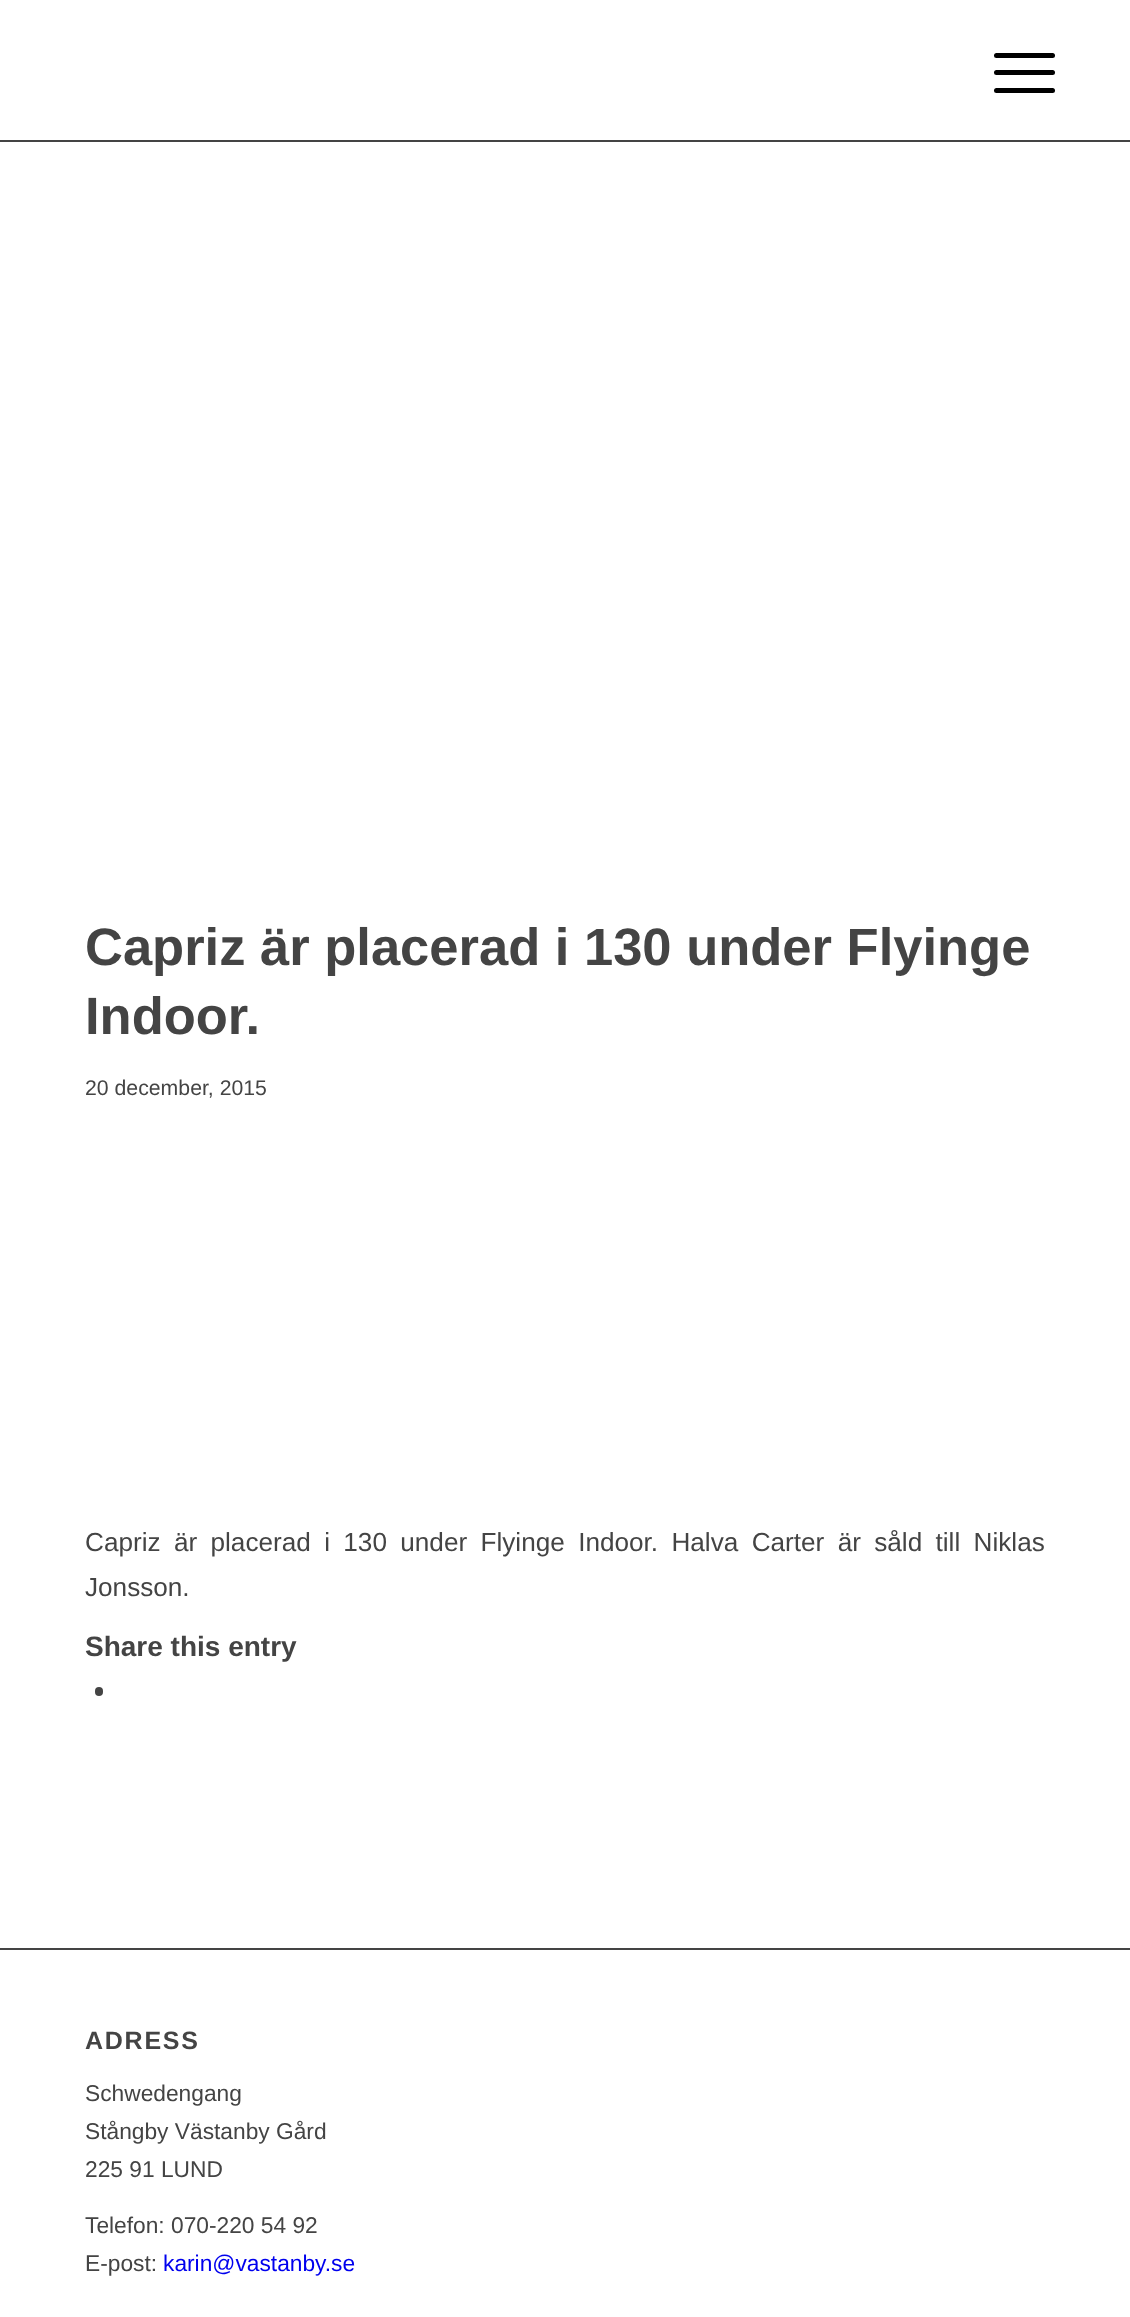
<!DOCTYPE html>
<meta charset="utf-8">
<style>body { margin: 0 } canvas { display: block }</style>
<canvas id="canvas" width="1130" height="2317"></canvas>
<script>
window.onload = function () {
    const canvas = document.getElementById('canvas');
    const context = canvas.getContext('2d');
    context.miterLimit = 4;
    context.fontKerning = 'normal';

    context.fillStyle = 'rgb(255, 255, 255)';
    context.fillRect(0, 0, 1130, 2317);
    context.fillStyle = 'rgb(68, 68, 68)';
    context.fillRect(0, 140, 1130, 2);
    context.fillStyle = 'rgb(0, 0, 0)';
    context.beginPath();
    context.roundRect(994, 70, 61, 5, 2.5);
    context.fill();
    context.beginPath();
    context.roundRect(994, 53, 61, 5, 2.5);
    context.fill();
    context.beginPath();
    context.roundRect(994, 88, 61, 5, 2.5);
    context.fill();
    context.fillStyle = 'rgb(68, 68, 68)';
    context.beginPath();
    context.roundRect(95, 1687, 8, 9, 4);
    context.fill();
    context.fillRect(0, 1948, 1130, 2);
    context.font = 'bold 52.5px Liberation Sans';
    context.fillText('Capriz är placerad i 130 under Flyinge', 85, 965);
    context.fillText('Indoor.', 85, 1034);
    context.font = '21.25px Liberation Sans';
    context.fillText('20 december, 2015', 85, 1095);
    context.wordSpacing = '6.1px';
    context.font = '26.15px Liberation Sans';
    context.fillText('Capriz är placerad i 130 under Flyinge Indoor. Halva Carter är såld till Niklas', 85, 1551);
    context.wordSpacing = '0px';
    context.fillText('Jonsson.', 85, 1596);
    context.font = 'bold 28px Liberation Sans';
    context.fillText('Share this entry', 85, 1656);
    context.letterSpacing = '1.75px';
    context.font = 'bold 25px Liberation Sans';
    context.fillText('ADRESS', 85, 2049);
    context.letterSpacing = '0px';
    context.font = '22.75px Liberation Sans';
    context.fillText('Schwedengang', 85, 2101);
    context.fillText('Stångby Västanby Gård', 85, 2139);
    context.fillText('225 91 LUND', 85, 2177);
    context.fillText('Telefon: 070-220 54 92', 85, 2233);
    context.fillText('E-post:', 85, 2271);
    context.fillStyle = 'rgb(0, 0, 238)';
    context.fillText('karin@vastanby.se', 163, 2271);
};
</script>
